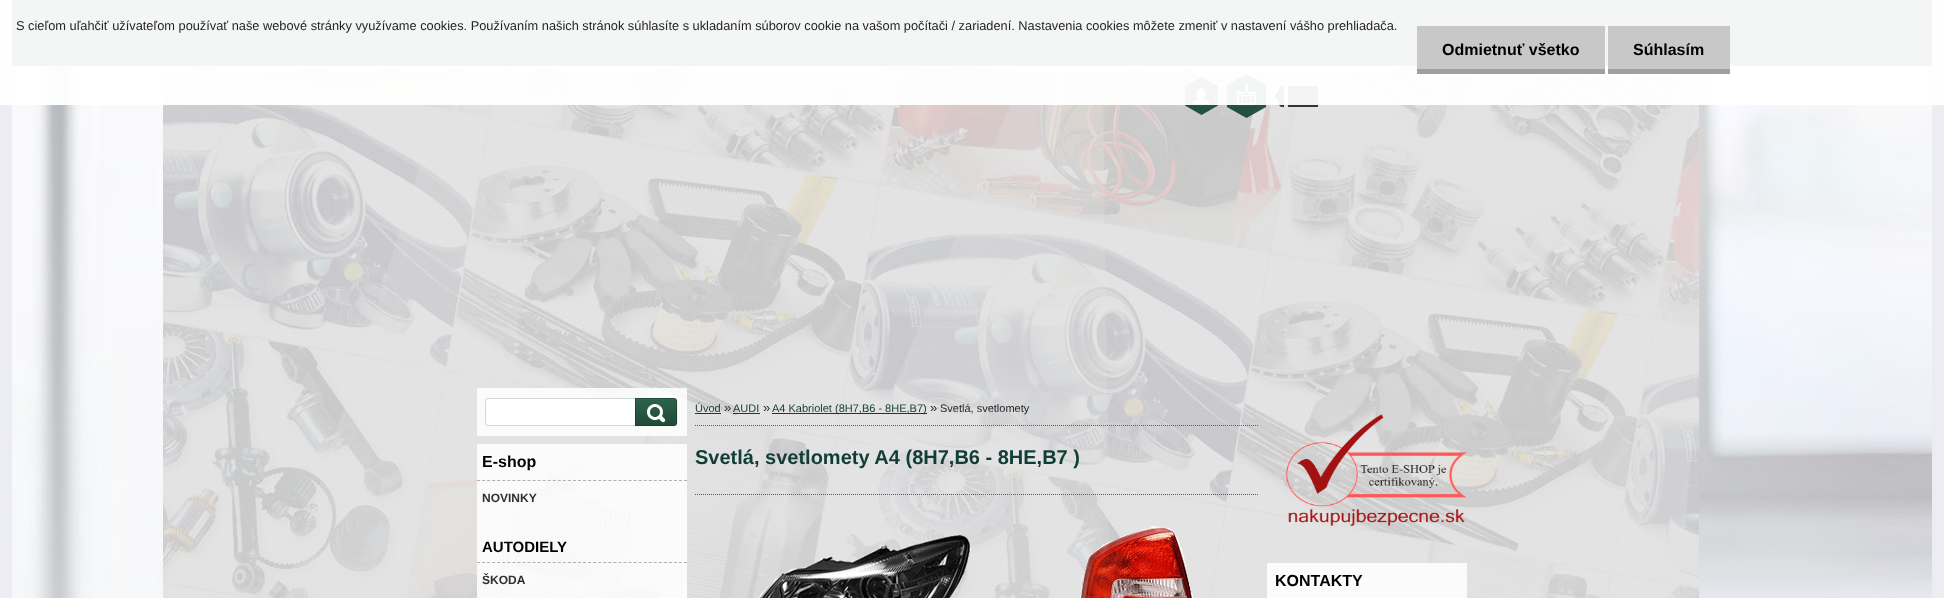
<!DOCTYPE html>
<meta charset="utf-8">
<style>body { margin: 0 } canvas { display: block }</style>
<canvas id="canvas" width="1944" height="598"></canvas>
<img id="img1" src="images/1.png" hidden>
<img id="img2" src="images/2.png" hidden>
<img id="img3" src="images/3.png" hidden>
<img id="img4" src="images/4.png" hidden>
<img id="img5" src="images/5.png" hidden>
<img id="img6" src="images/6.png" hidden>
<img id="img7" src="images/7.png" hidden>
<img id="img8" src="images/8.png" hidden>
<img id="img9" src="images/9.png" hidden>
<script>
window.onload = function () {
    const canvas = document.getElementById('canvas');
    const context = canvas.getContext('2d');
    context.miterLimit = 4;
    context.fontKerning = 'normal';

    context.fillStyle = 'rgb(236, 237, 242)';
    context.fillRect(0, 0, 1944, 598);
    context.drawImage(document.getElementById('img1'), 12, 0, 1920, 598);
    context.drawImage(document.getElementById('img2'), 1185, 77, 33, 38);
    context.drawImage(document.getElementById('img3'), 1227, 74, 39, 44);
    context.drawImage(document.getElementById('img4'), 1274, 86, 10, 21);
    context.fillStyle = 'rgb(255, 255, 255)';
    context.fillRect(1284, 101, 4, 1);
    context.fillStyle = 'rgba(1, 0, 10, 0.78)';
    context.fillRect(1288, 86, 30, 21);
    context.fillStyle = 'rgba(255, 255, 255, 0.95)';
    context.fillRect(0, 0, 1944, 105);
    context.fillStyle = 'rgb(200, 200, 200)';
    context.fillRect(1417, 26, 188, 43);
    context.fillStyle = 'rgb(160, 160, 160)';
    context.fillRect(1417, 69, 188, 5);
    context.fillStyle = 'rgb(200, 200, 200)';
    context.fillRect(1608, 26, 122, 43);
    context.fillStyle = 'rgb(160, 160, 160)';
    context.fillRect(1608, 69, 122, 5);
    context.beginPath();
    context.moveTo(695, 425.5);
    context.lineTo(1259, 425.5);
    context.strokeStyle = 'rgb(92, 92, 92)';
    context.setLineDash([1, 1]);
    context.stroke();
    context.fillStyle = 'rgb(17, 62, 52)';
    context.fillRect(695, 413, 26, 1);
    context.fillRect(733, 413, 27, 1);
    context.fillRect(772, 413, 155, 1);
    context.beginPath();
    context.moveTo(695, 494.5);
    context.lineTo(1259, 494.5);
    context.stroke();
    context.drawImage(document.getElementById('img5'), 759, 535, 212, 63);
    context.drawImage(document.getElementById('img6'), 1080, 526, 113, 72);
    context.fillStyle = 'rgba(255, 255, 255, 0.86)';
    context.fillRect(477, 388, 210, 48);
    context.drawImage(document.getElementById('img7'), 485, 398, 150, 28);
    context.drawImage(document.getElementById('img8'), 635, 398, 43, 28);
    context.fillRect(477, 444, 210, 154);
    context.beginPath();
    context.moveTo(477, 480.5);
    context.lineTo(687, 480.5);
    context.strokeStyle = 'rgb(171, 178, 182)';
    context.setLineDash([3, 2.05]);
    context.stroke();
    context.beginPath();
    context.moveTo(477, 562.5);
    context.lineTo(687, 562.5);
    context.stroke();
    context.drawImage(document.getElementById('img9'), 1285, 414, 182, 112);
    context.fillRect(1267, 563, 200, 35);
    context.font = '12.8px Liberation Sans';
    context.fillStyle = 'rgb(36, 36, 36)';
    context.fillText('S cieľom uľahčiť užívateľom používať naše webové stránky využívame cookies. Používaním našich stránok súhlasíte s ukladaním súborov cookie na vašom počítači / zariadení. Nastavenia cookies môžete zmeniť v nastavení vášho prehliadača.', 16, 30);
    context.font = 'bold 16px Liberation Sans';
    context.fillStyle = 'rgb(0, 0, 0)';
    context.fillText('Odmietnuť všetko', 1442, 55);
    context.fillText('Súhlasím', 1633, 55);
    context.font = '11px Liberation Sans';
    context.fillStyle = 'rgb(17, 62, 52)';
    context.fillText('Úvod', 695, 412);
    context.font = '13px Liberation Sans';
    context.fillStyle = 'rgb(36, 36, 36)';
    context.fillText('»', 724, 412);
    context.font = '11px Liberation Sans';
    context.fillStyle = 'rgb(17, 62, 52)';
    context.fillText('AUDI', 733, 412);
    context.font = '13px Liberation Sans';
    context.fillStyle = 'rgb(36, 36, 36)';
    context.fillText('»', 763, 412);
    context.font = '11px Liberation Sans';
    context.fillStyle = 'rgb(17, 62, 52)';
    context.fillText('A4 Kabriolet (8H7,B6 - 8HE,B7)', 772, 412);
    context.font = '13px Liberation Sans';
    context.fillStyle = 'rgb(36, 36, 36)';
    context.fillText('»', 930, 412);
    context.font = '11px Liberation Sans';
    context.fillText('Svetlá, svetlomety', 940, 412);
    context.font = 'bold 20px Liberation Sans';
    context.fillStyle = 'rgb(17, 62, 52)';
    context.fillText('Svetlá, svetlomety A4 (8H7,B6 - 8HE,B7 )', 695, 464);
    context.font = 'bold 16px Liberation Sans';
    context.fillStyle = 'rgb(0, 0, 0)';
    context.fillText('E-shop', 482, 467);
    context.font = 'bold 12px Liberation Sans';
    context.fillStyle = 'rgb(46, 47, 48)';
    context.fillText('NOVINKY', 482, 502);
    context.font = 'bold 15px Liberation Sans';
    context.fillStyle = 'rgb(0, 0, 0)';
    context.fillText('AUTODIELY', 482, 552);
    context.font = 'bold 12px Liberation Sans';
    context.fillStyle = 'rgb(46, 47, 48)';
    context.fillText('ŠKODA', 482, 584);
    context.font = 'bold 16px Liberation Sans';
    context.fillStyle = 'rgb(0, 0, 0)';
    context.fillText('KONTAKTY', 1275, 586);
};
</script>
